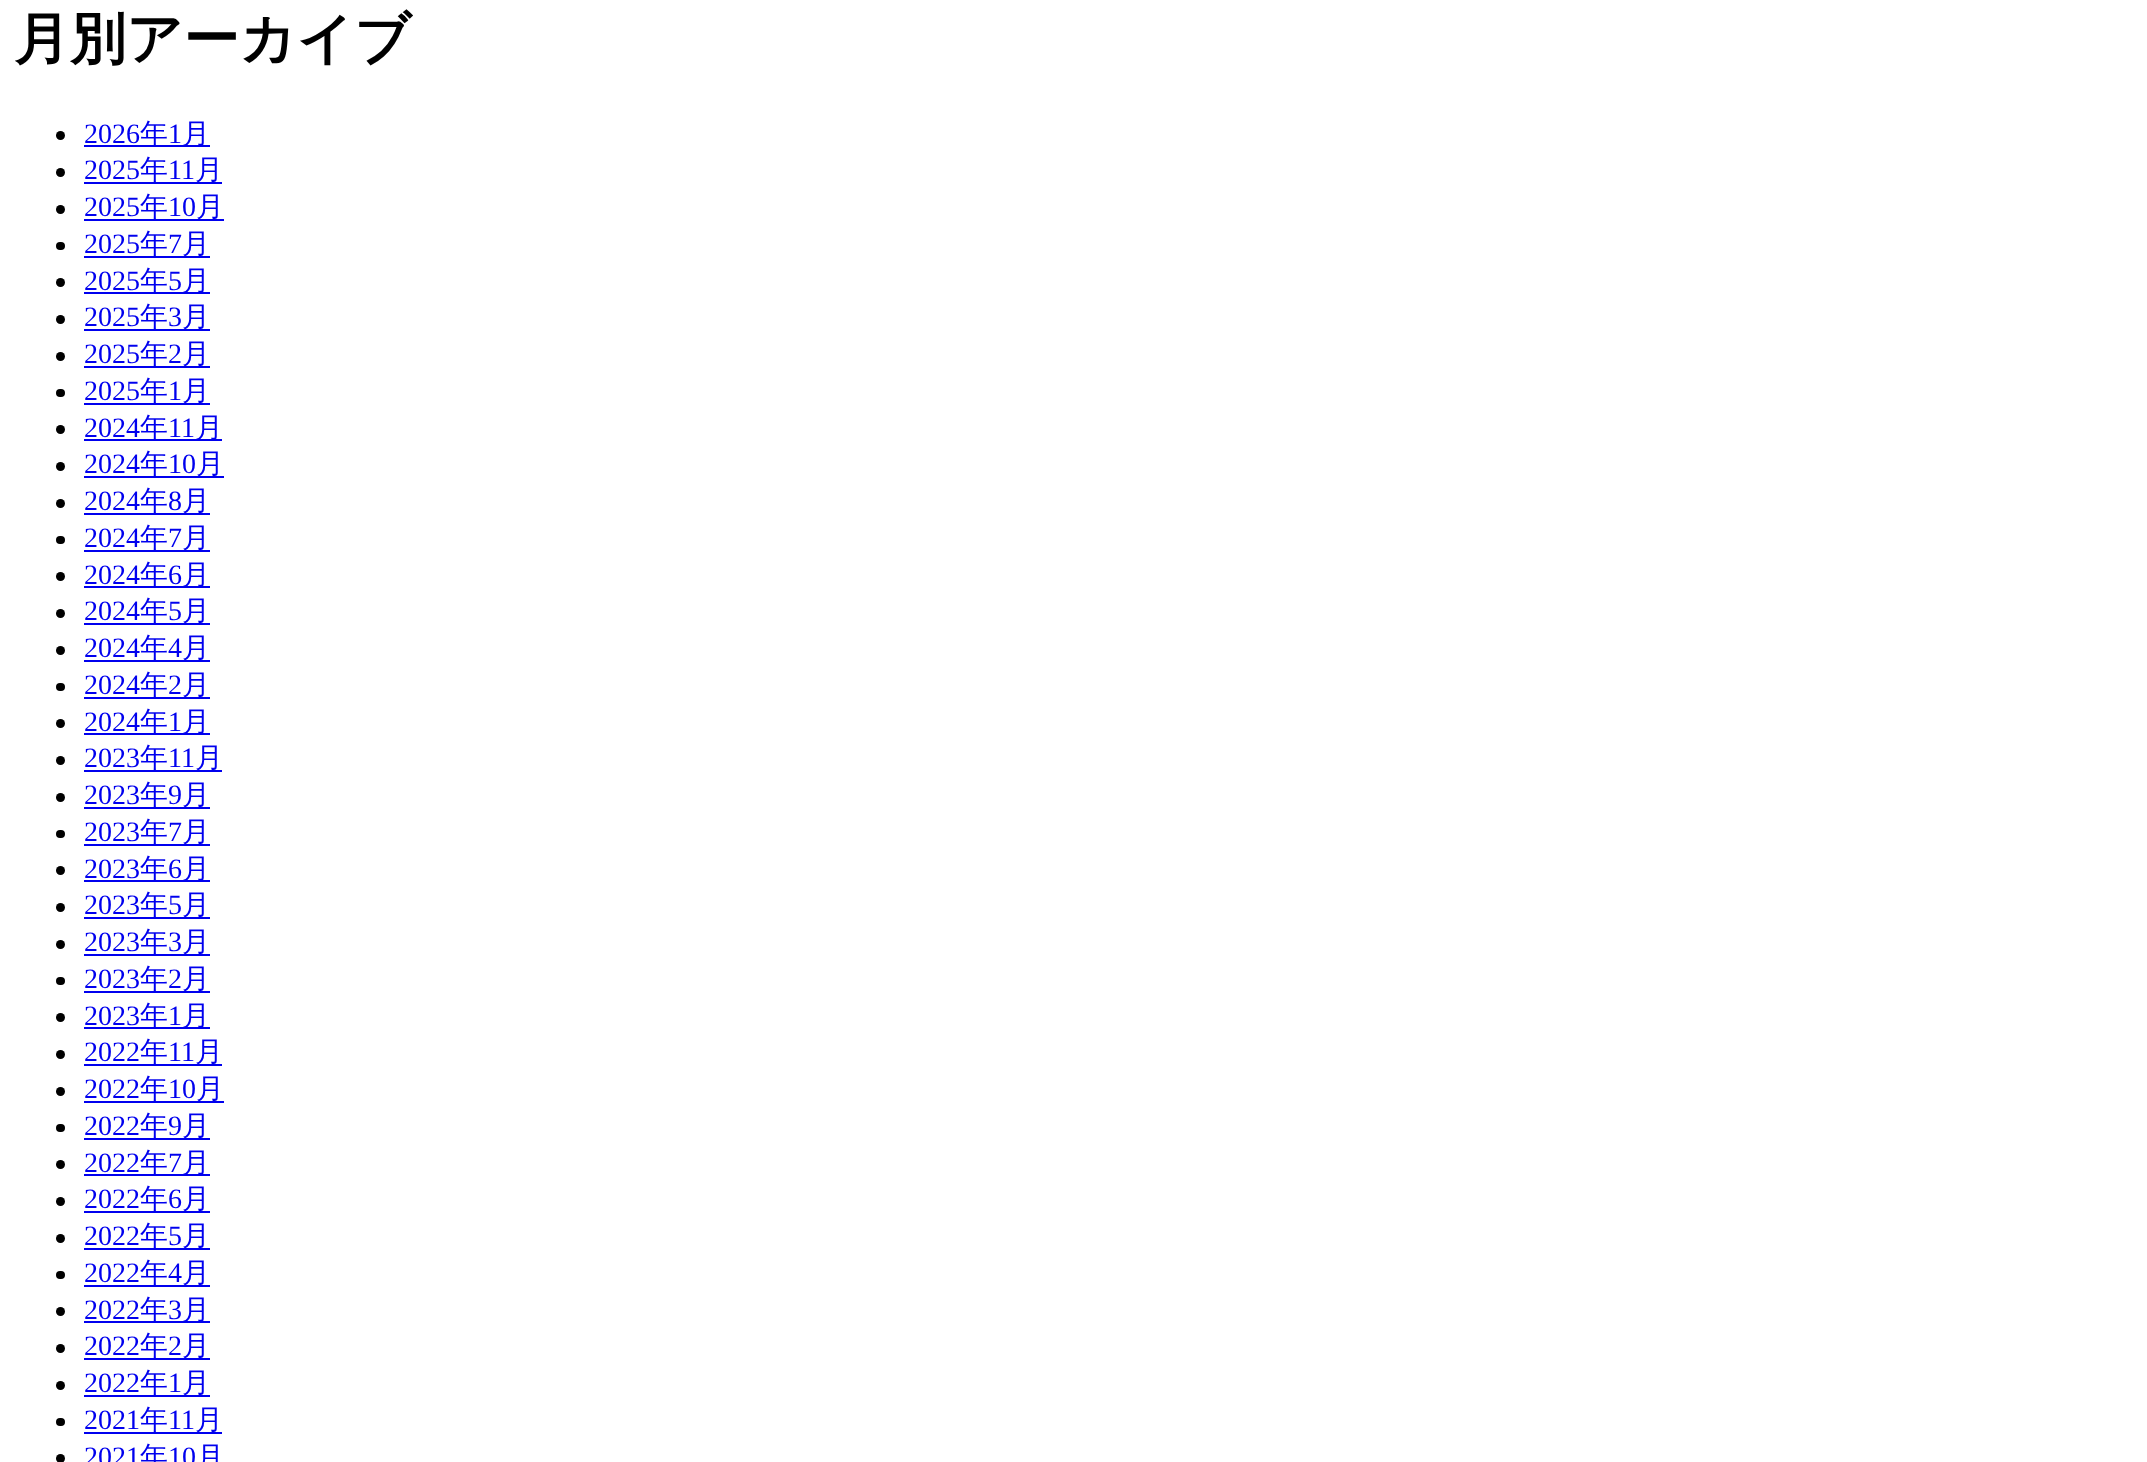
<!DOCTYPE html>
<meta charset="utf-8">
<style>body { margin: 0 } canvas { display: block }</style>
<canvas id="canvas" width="2147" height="1462"></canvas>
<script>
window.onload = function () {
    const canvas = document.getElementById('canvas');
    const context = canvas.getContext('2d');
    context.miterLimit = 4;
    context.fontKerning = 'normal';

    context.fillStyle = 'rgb(255, 255, 255)';
    context.fillRect(0, 0, 2147, 1462);
    context.fillStyle = 'rgb(0, 0, 0)';
    context.beginPath();
    context.arc(60.5, 135.5, 4.5, 0, 2 * Math.PI);
    context.fill();
    context.fillStyle = 'rgb(0, 0, 238)';
    context.fillRect(84, 145, 126, 2);
    context.fillStyle = 'rgb(0, 0, 0)';
    context.beginPath();
    context.arc(60.5, 172.5, 4.5, 0, 2 * Math.PI);
    context.fill();
    context.fillStyle = 'rgb(0, 0, 238)';
    context.fillRect(84, 182, 138, 2);
    context.fillStyle = 'rgb(0, 0, 0)';
    context.beginPath();
    context.arc(60.5, 209.5, 4.5, 0, 2 * Math.PI);
    context.fill();
    context.fillStyle = 'rgb(0, 0, 238)';
    context.fillRect(84, 219, 140, 2);
    context.fillStyle = 'rgb(0, 0, 0)';
    context.beginPath();
    context.roundRect(56, 242, 9, 8, 4);
    context.fill();
    context.fillStyle = 'rgb(0, 0, 238)';
    context.fillRect(84, 256, 126, 2);
    context.fillStyle = 'rgb(0, 0, 0)';
    context.beginPath();
    context.arc(60.5, 282.5, 4.5, 0, 2 * Math.PI);
    context.fill();
    context.fillStyle = 'rgb(0, 0, 238)';
    context.fillRect(84, 292, 126, 2);
    context.fillStyle = 'rgb(0, 0, 0)';
    context.beginPath();
    context.arc(60.5, 319.5, 4.5, 0, 2 * Math.PI);
    context.fill();
    context.fillStyle = 'rgb(0, 0, 238)';
    context.fillRect(84, 329, 126, 2);
    context.fillStyle = 'rgb(0, 0, 0)';
    context.beginPath();
    context.arc(60.5, 356.5, 4.5, 0, 2 * Math.PI);
    context.fill();
    context.fillStyle = 'rgb(0, 0, 238)';
    context.fillRect(84, 366, 126, 2);
    context.fillStyle = 'rgb(0, 0, 0)';
    context.beginPath();
    context.roundRect(56, 389, 9, 8, 4);
    context.fill();
    context.fillStyle = 'rgb(0, 0, 238)';
    context.fillRect(84, 403, 126, 2);
    context.fillStyle = 'rgb(0, 0, 0)';
    context.beginPath();
    context.arc(60.5, 429.5, 4.5, 0, 2 * Math.PI);
    context.fill();
    context.fillStyle = 'rgb(0, 0, 238)';
    context.fillRect(84, 439, 138, 2);
    context.fillStyle = 'rgb(0, 0, 0)';
    context.beginPath();
    context.arc(60.5, 466.5, 4.5, 0, 2 * Math.PI);
    context.fill();
    context.fillStyle = 'rgb(0, 0, 238)';
    context.fillRect(84, 476, 140, 2);
    context.fillStyle = 'rgb(0, 0, 0)';
    context.beginPath();
    context.arc(60.5, 503.5, 4.5, 0, 2 * Math.PI);
    context.fill();
    context.fillStyle = 'rgb(0, 0, 238)';
    context.fillRect(84, 513, 126, 2);
    context.fillStyle = 'rgb(0, 0, 0)';
    context.beginPath();
    context.roundRect(56, 536, 9, 8, 4);
    context.fill();
    context.fillStyle = 'rgb(0, 0, 238)';
    context.fillRect(84, 550, 126, 2);
    context.fillStyle = 'rgb(0, 0, 0)';
    context.beginPath();
    context.arc(60.5, 576.5, 4.5, 0, 2 * Math.PI);
    context.fill();
    context.fillStyle = 'rgb(0, 0, 238)';
    context.fillRect(84, 586, 126, 2);
    context.fillStyle = 'rgb(0, 0, 0)';
    context.beginPath();
    context.arc(60.5, 613.5, 4.5, 0, 2 * Math.PI);
    context.fill();
    context.fillStyle = 'rgb(0, 0, 238)';
    context.fillRect(84, 623, 126, 2);
    context.fillStyle = 'rgb(0, 0, 0)';
    context.beginPath();
    context.arc(60.5, 650.5, 4.5, 0, 2 * Math.PI);
    context.fill();
    context.fillStyle = 'rgb(0, 0, 238)';
    context.fillRect(84, 660, 126, 2);
    context.fillStyle = 'rgb(0, 0, 0)';
    context.beginPath();
    context.roundRect(56, 683, 9, 8, 4);
    context.fill();
    context.fillStyle = 'rgb(0, 0, 238)';
    context.fillRect(84, 697, 126, 2);
    context.fillStyle = 'rgb(0, 0, 0)';
    context.beginPath();
    context.arc(60.5, 723.5, 4.5, 0, 2 * Math.PI);
    context.fill();
    context.fillStyle = 'rgb(0, 0, 238)';
    context.fillRect(84, 733, 126, 2);
    context.fillStyle = 'rgb(0, 0, 0)';
    context.beginPath();
    context.arc(60.5, 760.5, 4.5, 0, 2 * Math.PI);
    context.fill();
    context.fillStyle = 'rgb(0, 0, 238)';
    context.fillRect(84, 770, 138, 2);
    context.fillStyle = 'rgb(0, 0, 0)';
    context.beginPath();
    context.arc(60.5, 797.5, 4.5, 0, 2 * Math.PI);
    context.fill();
    context.fillStyle = 'rgb(0, 0, 238)';
    context.fillRect(84, 807, 126, 2);
    context.fillStyle = 'rgb(0, 0, 0)';
    context.beginPath();
    context.roundRect(56, 830, 9, 8, 4);
    context.fill();
    context.fillStyle = 'rgb(0, 0, 238)';
    context.fillRect(84, 844, 126, 2);
    context.fillStyle = 'rgb(0, 0, 0)';
    context.beginPath();
    context.arc(60.5, 870.5, 4.5, 0, 2 * Math.PI);
    context.fill();
    context.fillStyle = 'rgb(0, 0, 238)';
    context.fillRect(84, 880, 126, 2);
    context.fillStyle = 'rgb(0, 0, 0)';
    context.beginPath();
    context.arc(60.5, 907.5, 4.5, 0, 2 * Math.PI);
    context.fill();
    context.fillStyle = 'rgb(0, 0, 238)';
    context.fillRect(84, 917, 126, 2);
    context.fillStyle = 'rgb(0, 0, 0)';
    context.beginPath();
    context.arc(60.5, 944.5, 4.5, 0, 2 * Math.PI);
    context.fill();
    context.fillStyle = 'rgb(0, 0, 238)';
    context.fillRect(84, 954, 126, 2);
    context.fillStyle = 'rgb(0, 0, 0)';
    context.beginPath();
    context.roundRect(56, 977, 9, 8, 4);
    context.fill();
    context.fillStyle = 'rgb(0, 0, 238)';
    context.fillRect(84, 991, 126, 2);
    context.fillStyle = 'rgb(0, 0, 0)';
    context.beginPath();
    context.arc(60.5, 1017.5, 4.5, 0, 2 * Math.PI);
    context.fill();
    context.fillStyle = 'rgb(0, 0, 238)';
    context.fillRect(84, 1027, 126, 2);
    context.fillStyle = 'rgb(0, 0, 0)';
    context.beginPath();
    context.arc(60.5, 1054.5, 4.5, 0, 2 * Math.PI);
    context.fill();
    context.fillStyle = 'rgb(0, 0, 238)';
    context.fillRect(84, 1064, 138, 2);
    context.fillStyle = 'rgb(0, 0, 0)';
    context.beginPath();
    context.arc(60.5, 1091.5, 4.5, 0, 2 * Math.PI);
    context.fill();
    context.fillStyle = 'rgb(0, 0, 238)';
    context.fillRect(84, 1101, 140, 2);
    context.fillStyle = 'rgb(0, 0, 0)';
    context.beginPath();
    context.roundRect(56, 1124, 9, 8, 4);
    context.fill();
    context.fillStyle = 'rgb(0, 0, 238)';
    context.fillRect(84, 1138, 126, 2);
    context.fillStyle = 'rgb(0, 0, 0)';
    context.beginPath();
    context.arc(60.5, 1164.5, 4.5, 0, 2 * Math.PI);
    context.fill();
    context.fillStyle = 'rgb(0, 0, 238)';
    context.fillRect(84, 1174, 126, 2);
    context.fillStyle = 'rgb(0, 0, 0)';
    context.beginPath();
    context.arc(60.5, 1201.5, 4.5, 0, 2 * Math.PI);
    context.fill();
    context.fillStyle = 'rgb(0, 0, 238)';
    context.fillRect(84, 1211, 126, 2);
    context.fillStyle = 'rgb(0, 0, 0)';
    context.beginPath();
    context.arc(60.5, 1238.5, 4.5, 0, 2 * Math.PI);
    context.fill();
    context.fillStyle = 'rgb(0, 0, 238)';
    context.fillRect(84, 1248, 126, 2);
    context.fillStyle = 'rgb(0, 0, 0)';
    context.beginPath();
    context.roundRect(56, 1271, 9, 8, 4);
    context.fill();
    context.fillStyle = 'rgb(0, 0, 238)';
    context.fillRect(84, 1285, 126, 2);
    context.fillStyle = 'rgb(0, 0, 0)';
    context.beginPath();
    context.arc(60.5, 1311.5, 4.5, 0, 2 * Math.PI);
    context.fill();
    context.fillStyle = 'rgb(0, 0, 238)';
    context.fillRect(84, 1321, 126, 2);
    context.fillStyle = 'rgb(0, 0, 0)';
    context.beginPath();
    context.arc(60.5, 1348.5, 4.5, 0, 2 * Math.PI);
    context.fill();
    context.fillStyle = 'rgb(0, 0, 238)';
    context.fillRect(84, 1358, 126, 2);
    context.fillStyle = 'rgb(0, 0, 0)';
    context.beginPath();
    context.arc(60.5, 1385.5, 4.5, 0, 2 * Math.PI);
    context.fill();
    context.fillStyle = 'rgb(0, 0, 238)';
    context.fillRect(84, 1395, 126, 2);
    context.fillStyle = 'rgb(0, 0, 0)';
    context.beginPath();
    context.roundRect(56, 1418, 9, 8, 4);
    context.fill();
    context.fillStyle = 'rgb(0, 0, 238)';
    context.fillRect(84, 1432, 138, 2);
    context.fillStyle = 'rgb(0, 0, 0)';
    context.beginPath();
    context.arc(60.5, 1458.5, 4.5, 0, 2 * Math.PI);
    context.fill();
    context.font = 'bold 56px WenQuanYi Zen Hei';
    context.fillText('月別アーカイブ', 14, 58);
    context.font = '28px Liberation Serif';
    context.fillStyle = 'rgb(0, 0, 238)';
    context.fillText('2026', 84, 143);
    context.font = '500 28px WenQuanYi Zen Hei';
    context.fillText('年', 140, 143);
    context.font = '28px Liberation Serif';
    context.fillText('1', 168, 143);
    context.font = '500 28px WenQuanYi Zen Hei';
    context.fillText('月', 182, 143);
    context.font = '28px Liberation Serif';
    context.fillText('2025', 84, 179);
    context.font = '500 28px WenQuanYi Zen Hei';
    context.fillText('年', 140, 179);
    context.font = '28px Liberation Serif';
    context.fillText('11', 168, 179);
    context.font = '500 28px WenQuanYi Zen Hei';
    context.fillText('月', 195, 179);
    context.font = '28px Liberation Serif';
    context.fillText('2025', 84, 216);
    context.font = '500 28px WenQuanYi Zen Hei';
    context.fillText('年', 140, 216);
    context.font = '28px Liberation Serif';
    context.fillText('10', 168, 216);
    context.font = '500 28px WenQuanYi Zen Hei';
    context.fillText('月', 196, 216);
    context.font = '28px Liberation Serif';
    context.fillText('2025', 84, 253);
    context.font = '500 28px WenQuanYi Zen Hei';
    context.fillText('年', 140, 253);
    context.font = '28px Liberation Serif';
    context.fillText('7', 168, 253);
    context.font = '500 28px WenQuanYi Zen Hei';
    context.fillText('月', 182, 253);
    context.font = '28px Liberation Serif';
    context.fillText('2025', 84, 290);
    context.font = '500 28px WenQuanYi Zen Hei';
    context.fillText('年', 140, 290);
    context.font = '28px Liberation Serif';
    context.fillText('5', 168, 290);
    context.font = '500 28px WenQuanYi Zen Hei';
    context.fillText('月', 182, 290);
    context.font = '28px Liberation Serif';
    context.fillText('2025', 84, 326);
    context.font = '500 28px WenQuanYi Zen Hei';
    context.fillText('年', 140, 326);
    context.font = '28px Liberation Serif';
    context.fillText('3', 168, 326);
    context.font = '500 28px WenQuanYi Zen Hei';
    context.fillText('月', 182, 326);
    context.font = '28px Liberation Serif';
    context.fillText('2025', 84, 363);
    context.font = '500 28px WenQuanYi Zen Hei';
    context.fillText('年', 140, 363);
    context.font = '28px Liberation Serif';
    context.fillText('2', 168, 363);
    context.font = '500 28px WenQuanYi Zen Hei';
    context.fillText('月', 182, 363);
    context.font = '28px Liberation Serif';
    context.fillText('2025', 84, 400);
    context.font = '500 28px WenQuanYi Zen Hei';
    context.fillText('年', 140, 400);
    context.font = '28px Liberation Serif';
    context.fillText('1', 168, 400);
    context.font = '500 28px WenQuanYi Zen Hei';
    context.fillText('月', 182, 400);
    context.font = '28px Liberation Serif';
    context.fillText('2024', 84, 437);
    context.font = '500 28px WenQuanYi Zen Hei';
    context.fillText('年', 140, 437);
    context.font = '28px Liberation Serif';
    context.fillText('11', 168, 437);
    context.font = '500 28px WenQuanYi Zen Hei';
    context.fillText('月', 195, 437);
    context.font = '28px Liberation Serif';
    context.fillText('2024', 84, 473);
    context.font = '500 28px WenQuanYi Zen Hei';
    context.fillText('年', 140, 473);
    context.font = '28px Liberation Serif';
    context.fillText('10', 168, 473);
    context.font = '500 28px WenQuanYi Zen Hei';
    context.fillText('月', 196, 473);
    context.font = '28px Liberation Serif';
    context.fillText('2024', 84, 510);
    context.font = '500 28px WenQuanYi Zen Hei';
    context.fillText('年', 140, 510);
    context.font = '28px Liberation Serif';
    context.fillText('8', 168, 510);
    context.font = '500 28px WenQuanYi Zen Hei';
    context.fillText('月', 182, 510);
    context.font = '28px Liberation Serif';
    context.fillText('2024', 84, 547);
    context.font = '500 28px WenQuanYi Zen Hei';
    context.fillText('年', 140, 547);
    context.font = '28px Liberation Serif';
    context.fillText('7', 168, 547);
    context.font = '500 28px WenQuanYi Zen Hei';
    context.fillText('月', 182, 547);
    context.font = '28px Liberation Serif';
    context.fillText('2024', 84, 584);
    context.font = '500 28px WenQuanYi Zen Hei';
    context.fillText('年', 140, 584);
    context.font = '28px Liberation Serif';
    context.fillText('6', 168, 584);
    context.font = '500 28px WenQuanYi Zen Hei';
    context.fillText('月', 182, 584);
    context.font = '28px Liberation Serif';
    context.fillText('2024', 84, 620);
    context.font = '500 28px WenQuanYi Zen Hei';
    context.fillText('年', 140, 620);
    context.font = '28px Liberation Serif';
    context.fillText('5', 168, 620);
    context.font = '500 28px WenQuanYi Zen Hei';
    context.fillText('月', 182, 620);
    context.font = '28px Liberation Serif';
    context.fillText('2024', 84, 657);
    context.font = '500 28px WenQuanYi Zen Hei';
    context.fillText('年', 140, 657);
    context.font = '28px Liberation Serif';
    context.fillText('4', 168, 657);
    context.font = '500 28px WenQuanYi Zen Hei';
    context.fillText('月', 182, 657);
    context.font = '28px Liberation Serif';
    context.fillText('2024', 84, 694);
    context.font = '500 28px WenQuanYi Zen Hei';
    context.fillText('年', 140, 694);
    context.font = '28px Liberation Serif';
    context.fillText('2', 168, 694);
    context.font = '500 28px WenQuanYi Zen Hei';
    context.fillText('月', 182, 694);
    context.font = '28px Liberation Serif';
    context.fillText('2024', 84, 731);
    context.font = '500 28px WenQuanYi Zen Hei';
    context.fillText('年', 140, 731);
    context.font = '28px Liberation Serif';
    context.fillText('1', 168, 731);
    context.font = '500 28px WenQuanYi Zen Hei';
    context.fillText('月', 182, 731);
    context.font = '28px Liberation Serif';
    context.fillText('2023', 84, 767);
    context.font = '500 28px WenQuanYi Zen Hei';
    context.fillText('年', 140, 767);
    context.font = '28px Liberation Serif';
    context.fillText('11', 168, 767);
    context.font = '500 28px WenQuanYi Zen Hei';
    context.fillText('月', 195, 767);
    context.font = '28px Liberation Serif';
    context.fillText('2023', 84, 804);
    context.font = '500 28px WenQuanYi Zen Hei';
    context.fillText('年', 140, 804);
    context.font = '28px Liberation Serif';
    context.fillText('9', 168, 804);
    context.font = '500 28px WenQuanYi Zen Hei';
    context.fillText('月', 182, 804);
    context.font = '28px Liberation Serif';
    context.fillText('2023', 84, 841);
    context.font = '500 28px WenQuanYi Zen Hei';
    context.fillText('年', 140, 841);
    context.font = '28px Liberation Serif';
    context.fillText('7', 168, 841);
    context.font = '500 28px WenQuanYi Zen Hei';
    context.fillText('月', 182, 841);
    context.font = '28px Liberation Serif';
    context.fillText('2023', 84, 878);
    context.font = '500 28px WenQuanYi Zen Hei';
    context.fillText('年', 140, 878);
    context.font = '28px Liberation Serif';
    context.fillText('6', 168, 878);
    context.font = '500 28px WenQuanYi Zen Hei';
    context.fillText('月', 182, 878);
    context.font = '28px Liberation Serif';
    context.fillText('2023', 84, 914);
    context.font = '500 28px WenQuanYi Zen Hei';
    context.fillText('年', 140, 914);
    context.font = '28px Liberation Serif';
    context.fillText('5', 168, 914);
    context.font = '500 28px WenQuanYi Zen Hei';
    context.fillText('月', 182, 914);
    context.font = '28px Liberation Serif';
    context.fillText('2023', 84, 951);
    context.font = '500 28px WenQuanYi Zen Hei';
    context.fillText('年', 140, 951);
    context.font = '28px Liberation Serif';
    context.fillText('3', 168, 951);
    context.font = '500 28px WenQuanYi Zen Hei';
    context.fillText('月', 182, 951);
    context.font = '28px Liberation Serif';
    context.fillText('2023', 84, 988);
    context.font = '500 28px WenQuanYi Zen Hei';
    context.fillText('年', 140, 988);
    context.font = '28px Liberation Serif';
    context.fillText('2', 168, 988);
    context.font = '500 28px WenQuanYi Zen Hei';
    context.fillText('月', 182, 988);
    context.font = '28px Liberation Serif';
    context.fillText('2023', 84, 1025);
    context.font = '500 28px WenQuanYi Zen Hei';
    context.fillText('年', 140, 1025);
    context.font = '28px Liberation Serif';
    context.fillText('1', 168, 1025);
    context.font = '500 28px WenQuanYi Zen Hei';
    context.fillText('月', 182, 1025);
    context.font = '28px Liberation Serif';
    context.fillText('2022', 84, 1061);
    context.font = '500 28px WenQuanYi Zen Hei';
    context.fillText('年', 140, 1061);
    context.font = '28px Liberation Serif';
    context.fillText('11', 168, 1061);
    context.font = '500 28px WenQuanYi Zen Hei';
    context.fillText('月', 195, 1061);
    context.font = '28px Liberation Serif';
    context.fillText('2022', 84, 1098);
    context.font = '500 28px WenQuanYi Zen Hei';
    context.fillText('年', 140, 1098);
    context.font = '28px Liberation Serif';
    context.fillText('10', 168, 1098);
    context.font = '500 28px WenQuanYi Zen Hei';
    context.fillText('月', 196, 1098);
    context.font = '28px Liberation Serif';
    context.fillText('2022', 84, 1135);
    context.font = '500 28px WenQuanYi Zen Hei';
    context.fillText('年', 140, 1135);
    context.font = '28px Liberation Serif';
    context.fillText('9', 168, 1135);
    context.font = '500 28px WenQuanYi Zen Hei';
    context.fillText('月', 182, 1135);
    context.font = '28px Liberation Serif';
    context.fillText('2022', 84, 1172);
    context.font = '500 28px WenQuanYi Zen Hei';
    context.fillText('年', 140, 1172);
    context.font = '28px Liberation Serif';
    context.fillText('7', 168, 1172);
    context.font = '500 28px WenQuanYi Zen Hei';
    context.fillText('月', 182, 1172);
    context.font = '28px Liberation Serif';
    context.fillText('2022', 84, 1208);
    context.font = '500 28px WenQuanYi Zen Hei';
    context.fillText('年', 140, 1208);
    context.font = '28px Liberation Serif';
    context.fillText('6', 168, 1208);
    context.font = '500 28px WenQuanYi Zen Hei';
    context.fillText('月', 182, 1208);
    context.font = '28px Liberation Serif';
    context.fillText('2022', 84, 1245);
    context.font = '500 28px WenQuanYi Zen Hei';
    context.fillText('年', 140, 1245);
    context.font = '28px Liberation Serif';
    context.fillText('5', 168, 1245);
    context.font = '500 28px WenQuanYi Zen Hei';
    context.fillText('月', 182, 1245);
    context.font = '28px Liberation Serif';
    context.fillText('2022', 84, 1282);
    context.font = '500 28px WenQuanYi Zen Hei';
    context.fillText('年', 140, 1282);
    context.font = '28px Liberation Serif';
    context.fillText('4', 168, 1282);
    context.font = '500 28px WenQuanYi Zen Hei';
    context.fillText('月', 182, 1282);
    context.font = '28px Liberation Serif';
    context.fillText('2022', 84, 1319);
    context.font = '500 28px WenQuanYi Zen Hei';
    context.fillText('年', 140, 1319);
    context.font = '28px Liberation Serif';
    context.fillText('3', 168, 1319);
    context.font = '500 28px WenQuanYi Zen Hei';
    context.fillText('月', 182, 1319);
    context.font = '28px Liberation Serif';
    context.fillText('2022', 84, 1355);
    context.font = '500 28px WenQuanYi Zen Hei';
    context.fillText('年', 140, 1355);
    context.font = '28px Liberation Serif';
    context.fillText('2', 168, 1355);
    context.font = '500 28px WenQuanYi Zen Hei';
    context.fillText('月', 182, 1355);
    context.font = '28px Liberation Serif';
    context.fillText('2022', 84, 1392);
    context.font = '500 28px WenQuanYi Zen Hei';
    context.fillText('年', 140, 1392);
    context.font = '28px Liberation Serif';
    context.fillText('1', 168, 1392);
    context.font = '500 28px WenQuanYi Zen Hei';
    context.fillText('月', 182, 1392);
    context.font = '28px Liberation Serif';
    context.fillText('2021', 84, 1429);
    context.font = '500 28px WenQuanYi Zen Hei';
    context.fillText('年', 140, 1429);
    context.font = '28px Liberation Serif';
    context.fillText('11', 168, 1429);
    context.font = '500 28px WenQuanYi Zen Hei';
    context.fillText('月', 195, 1429);
    context.font = '28px Liberation Serif';
    context.fillText('2021', 84, 1466);
    context.font = '500 28px WenQuanYi Zen Hei';
    context.fillText('年', 140, 1466);
    context.font = '28px Liberation Serif';
    context.fillText('10', 168, 1466);
    context.font = '500 28px WenQuanYi Zen Hei';
    context.fillText('月', 196, 1466);
};
</script>
